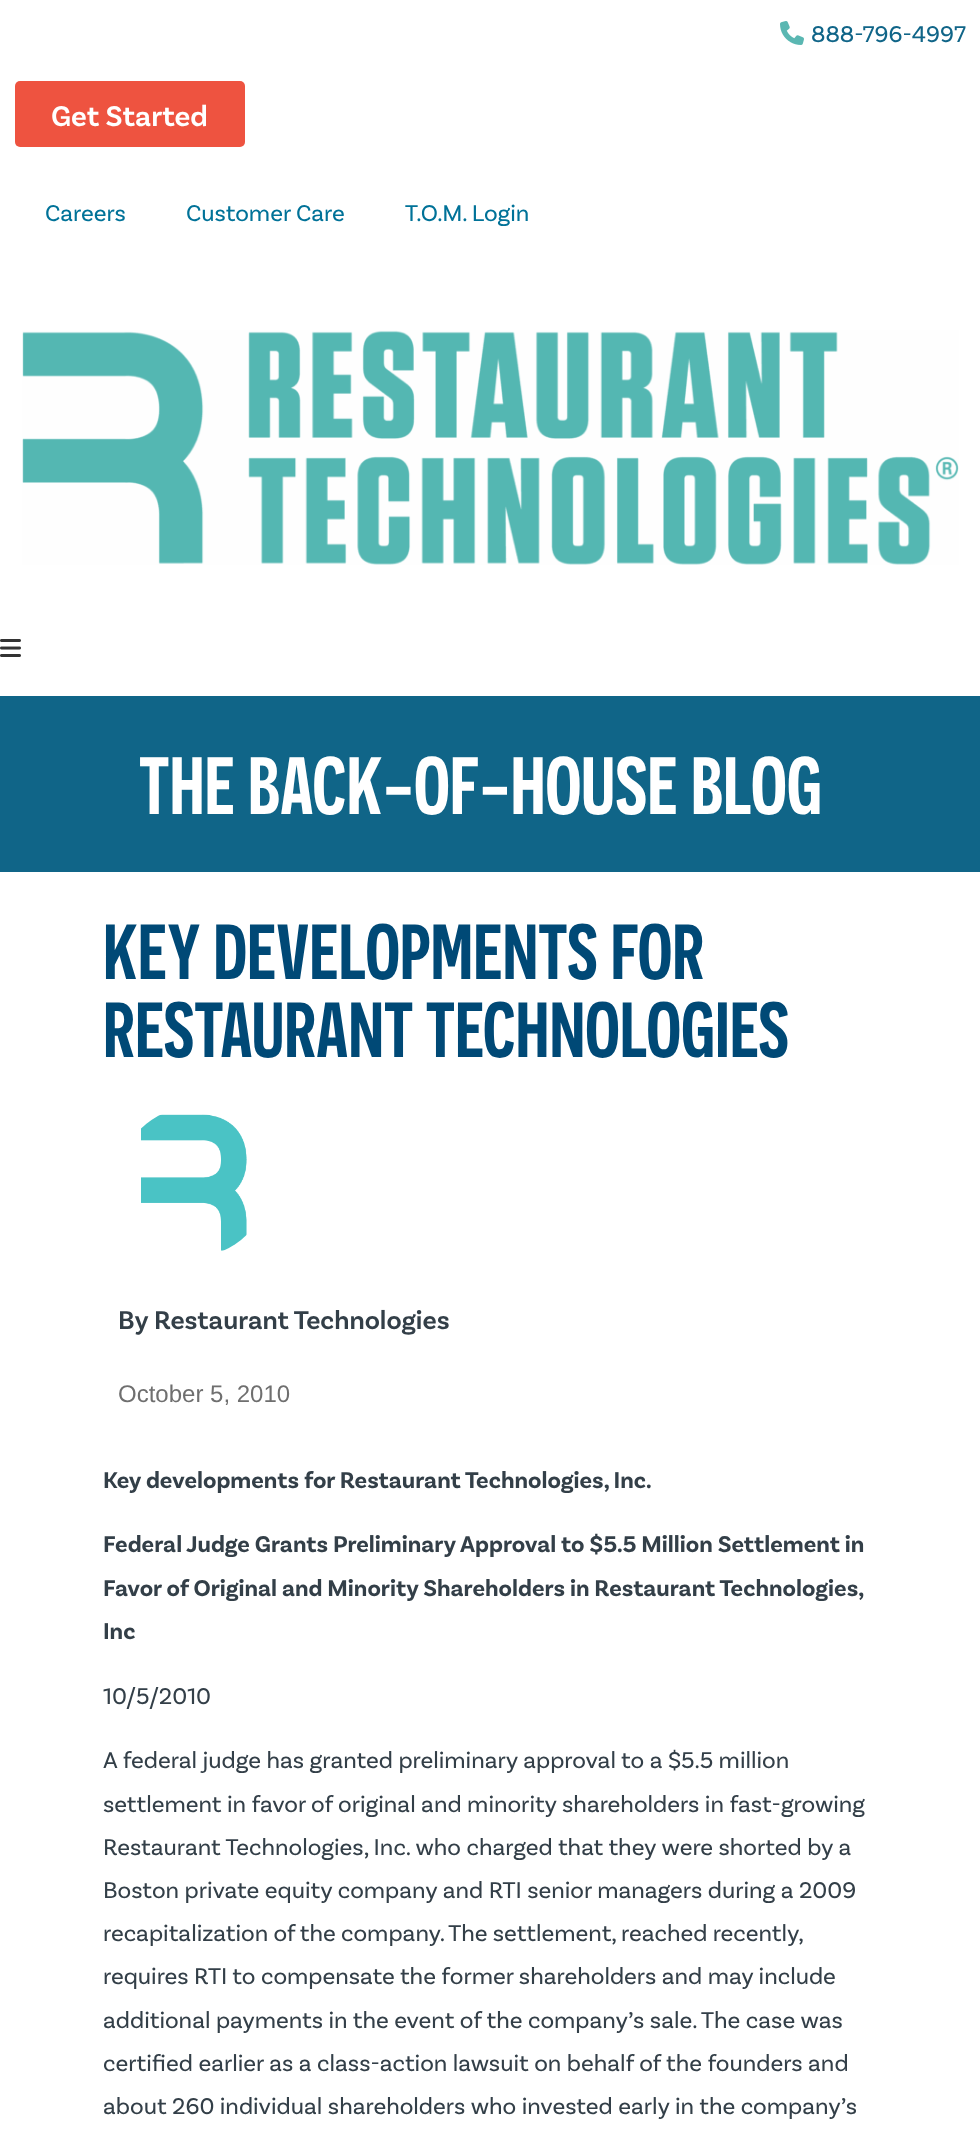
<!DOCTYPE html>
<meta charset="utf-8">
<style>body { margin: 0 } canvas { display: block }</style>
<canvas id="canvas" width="980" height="2145"></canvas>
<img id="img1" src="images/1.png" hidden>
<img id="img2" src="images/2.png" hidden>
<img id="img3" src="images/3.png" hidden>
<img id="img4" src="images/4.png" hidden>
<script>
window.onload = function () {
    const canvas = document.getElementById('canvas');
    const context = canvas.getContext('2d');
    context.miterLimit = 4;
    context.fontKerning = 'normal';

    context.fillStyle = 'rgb(255, 255, 255)';
    context.fillRect(0, 0, 980, 2145);
    context.drawImage(document.getElementById('img1'), 780, 21, 24, 24);
    context.fillStyle = 'rgb(238, 83, 64)';
    context.beginPath();
    context.roundRect(15, 81, 230, 66, 5);
    context.fill();
    context.drawImage(document.getElementById('img2'), 22, 330, 937, 235);
    context.drawImage(document.getElementById('img3'), 0, 639, 21, 18);
    context.fillStyle = 'rgb(16, 101, 136)';
    context.fillRect(0, 696, 980, 176);
    context.drawImage(document.getElementById('img4'), 141, 1114, 106, 137);
    context.font = '24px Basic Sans';
    context.fillText('888-796-4997', 811, 42);
    context.font = '600 30px Basic Sans';
    context.fillStyle = 'rgb(255, 255, 255)';
    context.fillText('Get Started', 51, 126);
    context.font = '24px Basic Sans';
    context.fillStyle = 'rgb(0, 114, 152)';
    context.fillText('Careers', 45, 221);
    context.fillText('Customer Care', 186, 221);
    context.fillText('T.O.M. Login', 405, 221);
    context.font = '600 81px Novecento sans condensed';
    context.fillStyle = 'rgb(255, 255, 255)';
    context.fillText('THE BACK-OF-HOUSE BLOG', 139, 814);
    context.font = '600 78px Novecento sans condensed';
    context.fillStyle = 'rgb(0, 73, 118)';
    context.fillText('KEY DEVELOPMENTS FOR', 103, 979);
    context.fillText('RESTAURANT TECHNOLOGIES', 103, 1057);
    context.font = '600 27px Basic Sans';
    context.fillStyle = 'rgb(51, 63, 72)';
    context.fillText('By', 118, 1329);
    context.fillText('Restaurant Technologies', 154, 1329);
    context.font = '24px Liberation Sans';
    context.fillStyle = 'rgb(111, 111, 111)';
    context.fillText('October 5, 2010', 118, 1402);
    context.font = 'bold 24px Basic Sans';
    context.fillStyle = 'rgb(51, 63, 72)';
    context.fillText('Key developments for Restaurant Technologies, Inc.', 103, 1488);
    context.fillText('Federal Judge Grants Preliminary Approval to $5.5 Million Settlement in', 103, 1552);
    context.fillText('Favor of Original and Minority Shareholders in Restaurant Technologies,', 103, 1596);
    context.fillText('Inc', 103, 1639);
    context.font = '24px Basic Sans';
    context.fillText('10/5/2010', 103, 1704);
    context.fillText('A federal judge has granted preliminary approval to a $5.5 million', 103, 1768);
    context.fillText('settlement in favor of original and minority shareholders in fast-growing', 103, 1812);
    context.fillText('Restaurant Technologies, Inc. who charged that they were shorted by a', 103, 1855);
    context.fillText('Boston private equity company and RTI senior managers during a 2009', 103, 1898);
    context.wordSpacing = '-0.25px';
    context.fillText('recapitalization of the company. The settlement, reached recently,', 103, 1941);
    context.wordSpacing = '0px';
    context.fillText('requires RTI to compensate the former shareholders and may include', 103, 1984);
    context.fillText('additional payments in the event of the company’s sale. The case was', 103, 2028);
    context.fillText('certified earlier as a class-action lawsuit on behalf of the founders and', 103, 2071);
    context.fillText('about 260 individual shareholders who invested early in the company’s', 103, 2114);
};
</script>
